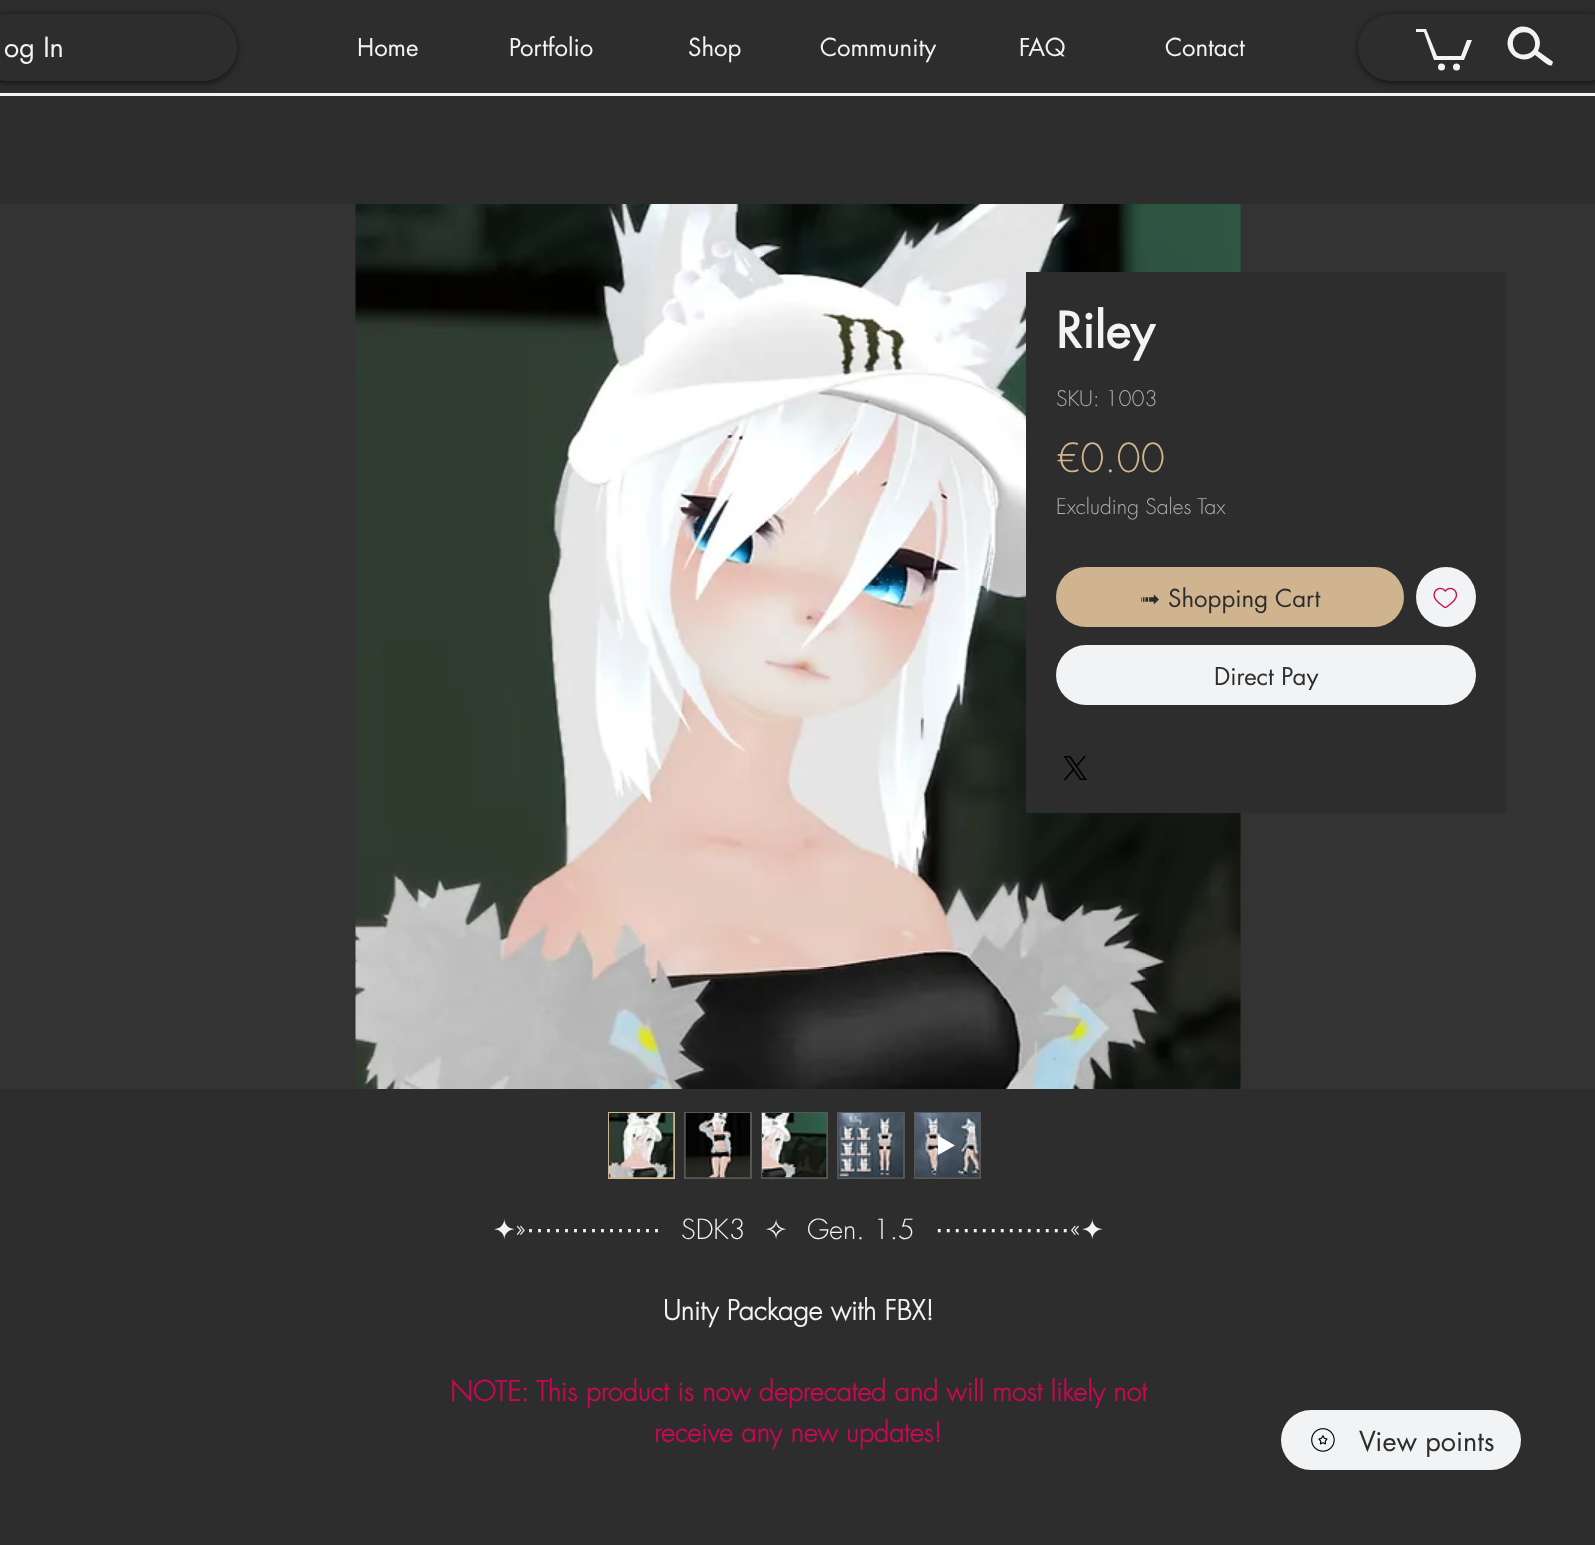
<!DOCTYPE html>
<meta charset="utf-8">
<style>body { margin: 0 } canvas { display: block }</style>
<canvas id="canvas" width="1595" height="1545"></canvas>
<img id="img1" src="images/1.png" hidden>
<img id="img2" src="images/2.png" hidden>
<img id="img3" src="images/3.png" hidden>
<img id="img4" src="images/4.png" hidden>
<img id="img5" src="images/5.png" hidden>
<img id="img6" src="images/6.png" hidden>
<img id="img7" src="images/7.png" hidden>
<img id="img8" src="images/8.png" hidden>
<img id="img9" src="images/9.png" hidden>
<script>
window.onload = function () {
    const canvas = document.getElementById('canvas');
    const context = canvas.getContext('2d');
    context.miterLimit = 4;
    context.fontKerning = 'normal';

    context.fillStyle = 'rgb(45, 45, 45)';
    context.fillRect(0, 0, 1595, 1545);
    context.save();
    context.beginPath();
    context.moveTo(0, 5);
    context.lineTo(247, 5);
    context.lineTo(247, 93);
    context.lineTo(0, 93);
    context.closePath();
    context.moveTo(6.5, 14);
    context.lineTo(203.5, 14);
    context.bezierCurveTo(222, 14, 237, 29, 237, 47.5);
    context.bezierCurveTo(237, 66, 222, 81, 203.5, 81);
    context.lineTo(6.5, 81);
    context.bezierCurveTo(-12, 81, -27, 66, -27, 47.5);
    context.bezierCurveTo(-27, 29, -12, 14, 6.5, 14);
    context.closePath();
    context.clip('evenodd');
    context.fillStyle = 'rgba(0, 0, 0, 0.6)';
    context.filter = 'blur(3px)';
    context.beginPath();
    context.roundRect(-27, 15, 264, 68, 34);
    context.fill();
    context.filter = 'none';
    context.restore();
    context.save();
    context.beginPath();
    context.moveTo(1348, 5);
    context.lineTo(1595, 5);
    context.lineTo(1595, 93);
    context.lineTo(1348, 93);
    context.closePath();
    context.moveTo(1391.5, 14);
    context.lineTo(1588.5, 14);
    context.bezierCurveTo(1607, 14, 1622, 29, 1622, 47.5);
    context.bezierCurveTo(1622, 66, 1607, 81, 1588.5, 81);
    context.lineTo(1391.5, 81);
    context.bezierCurveTo(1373, 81, 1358, 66, 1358, 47.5);
    context.bezierCurveTo(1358, 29, 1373, 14, 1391.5, 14);
    context.closePath();
    context.clip('evenodd');
    context.fillStyle = 'rgba(0, 0, 0, 0.6)';
    context.filter = 'blur(3px)';
    context.beginPath();
    context.roundRect(1358, 15, 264, 68, 34);
    context.fill();
    context.filter = 'none';
    context.restore();
    context.fillStyle = 'rgb(242, 243, 244)';
    context.beginPath();
    context.moveTo(1472, 40);
    context.lineTo(1464, 60);
    context.lineTo(1434, 60);
    context.lineTo(1424, 32);
    context.lineTo(1416, 32);
    context.lineTo(1416, 29);
    context.lineTo(1426, 29);
    context.lineTo(1437, 56);
    context.lineTo(1461, 56);
    context.lineTo(1467, 40);
    context.fill();
    context.beginPath();
    context.arc(1456.5, 67, 3.5, 0, 2 * Math.PI);
    context.fill();
    context.beginPath();
    context.arc(1441.5, 67, 3.5, 0, 2 * Math.PI);
    context.fill();
    context.beginPath();
    context.moveTo(1552, 61);
    context.lineTo(1538, 51);
    context.bezierCurveTo(1547, 34, 1523, 17, 1511, 33);
    context.bezierCurveTo(1499, 50, 1521, 68, 1535, 55);
    context.lineTo(1544, 62);
    context.bezierCurveTo(1546, 63, 1549, 67, 1552, 65);
    context.lineTo(1553, 62);
    context.closePath();
    context.moveTo(1513, 45);
    context.bezierCurveTo(1511, 30, 1533, 27, 1535, 42);
    context.bezierCurveTo(1537, 56, 1515, 60, 1513, 45);
    context.closePath();
    context.fill();
    context.fillRect(0, 93, 1595, 3);
    context.fillStyle = 'rgb(51, 51, 51)';
    context.fillRect(0, 204, 1595, 885);
    context.drawImage(document.getElementById('img1'), 355, 204, 886, 885);
    context.strokeStyle = 'rgb(208, 180, 143)';
    context.lineWidth = 2;
    context.strokeRect(609, 1113, 65, 65);
    context.drawImage(document.getElementById('img2'), 609, 1113, 65, 65);
    context.strokeStyle = 'rgb(87, 87, 87)';
    context.strokeRect(685, 1113, 66, 65);
    context.drawImage(document.getElementById('img3'), 685, 1113, 65, 65);
    context.strokeRect(762, 1113, 65, 65);
    context.drawImage(document.getElementById('img4'), 762, 1113, 65, 65);
    context.strokeRect(838, 1113, 66, 65);
    context.drawImage(document.getElementById('img5'), 838, 1113, 65, 65);
    context.strokeRect(915, 1113, 65, 65);
    context.drawImage(document.getElementById('img6'), 915, 1113, 65, 65);
    context.fillStyle = 'rgb(255, 255, 255)';
    context.beginPath();
    context.moveTo(938, 1135.5);
    context.lineTo(938, 1155);
    context.lineTo(955, 1145.5);
    context.closePath();
    context.fill();
    context.fillStyle = 'rgb(45, 45, 45)';
    context.fillRect(1026, 272, 480, 541);
    context.fillStyle = 'rgb(208, 180, 143)';
    context.beginPath();
    context.roundRect(1056, 567, 348, 60, 30);
    context.fill();
    context.fillStyle = 'rgb(242, 243, 244)';
    context.beginPath();
    context.arc(1446, 597, 30, 0, 2 * Math.PI);
    context.fill();
    context.drawImage(document.getElementById('img7'), 1433, 587, 25, 22);
    context.beginPath();
    context.roundRect(1056, 645, 420, 60, 30);
    context.fill();
    context.drawImage(document.getElementById('img8'), 1063, 756, 24, 24);
    context.beginPath();
    context.roundRect(1281, 1410, 240, 60, 30);
    context.fill();
    context.drawImage(document.getElementById('img9'), 1311, 1428, 24, 24);
    context.font = '27px futura';
    context.fillText('og In', 4, 57);
    context.font = '24px futura';
    context.fillText('Home', 357, 56);
    context.fillText('Portfolio', 509, 56);
    context.fillText('Shop', 688, 56);
    context.fillText('Community', 820, 56);
    context.fillText('FAQ', 1019, 56);
    context.fillText('Contact', 1165, 56);
    context.font = 'bold 48px "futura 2"';
    context.fillText('Riley', 1056, 348);
    context.font = '300 21px futura';
    context.fillStyle = 'rgb(176, 176, 176)';
    context.fillText('SKU: 1003', 1056, 406);
    context.font = '300 39px futura';
    context.fillStyle = 'rgb(208, 180, 143)';
    context.fillText('€0.00', 1056, 472);
    context.font = '300 21px futura';
    context.fillStyle = 'rgb(176, 176, 176)';
    context.fillText('Excluding Sales Tax', 1056, 514);
    context.font = '24px DejaVu Sans';
    context.fillStyle = 'rgb(45, 45, 45)';
    context.fillText('➟', 1140, 607);
    context.font = '24px futura';
    context.fillText('Shopping Cart', 1168, 607);
    context.save();
    context.beginPath();
    context.rect(1214, 660, 105, 30);
    context.clip();
    context.fillText('Direct Pay', 1214, 685);
    context.restore();
    context.font = '27px DejaVu Sans';
    context.fillStyle = 'rgb(242, 243, 244)';
    context.fillText('✦', 493, 1239);
    context.font = '300 27px futura';
    context.fillText('»', 515, 1239);
    context.font = '27px DejaVu Sans';
    context.fillText('⋯⋯⋯⋯⋯⠀', 526, 1239);
    context.font = '300 27px futura';
    context.fillText('SDK3', 681, 1239);
    context.font = '27px DejaVu Sans';
    context.fillText('⠀✧⠀', 745, 1239);
    context.font = '300 27px futura';
    context.fillText('Gen. 1.5', 807, 1239);
    context.font = '27px DejaVu Sans';
    context.fillText('⠀⋯⋯⋯⋯⋯', 915, 1239);
    context.font = '300 27px futura';
    context.fillText('«', 1070, 1239);
    context.font = '27px DejaVu Sans';
    context.fillText('✦', 1081, 1239);
    context.font = 'bold 27px futura';
    context.fillText('Unity Package with FBX!', 663, 1320);
    context.fillStyle = 'rgb(197, 10, 81)';
    context.fillText('NOTE: This product is now deprecated and will most likely not', 450, 1401);
    context.fillText('receive any new updates!', 654, 1442);
    context.save();
    context.beginPath();
    context.rect(1359, 1424, 135, 33);
    context.clip();
    context.font = '27px futura';
    context.fillStyle = 'rgb(45, 45, 45)';
    context.fillText('View points', 1359, 1451);
    context.restore();
};
</script>
